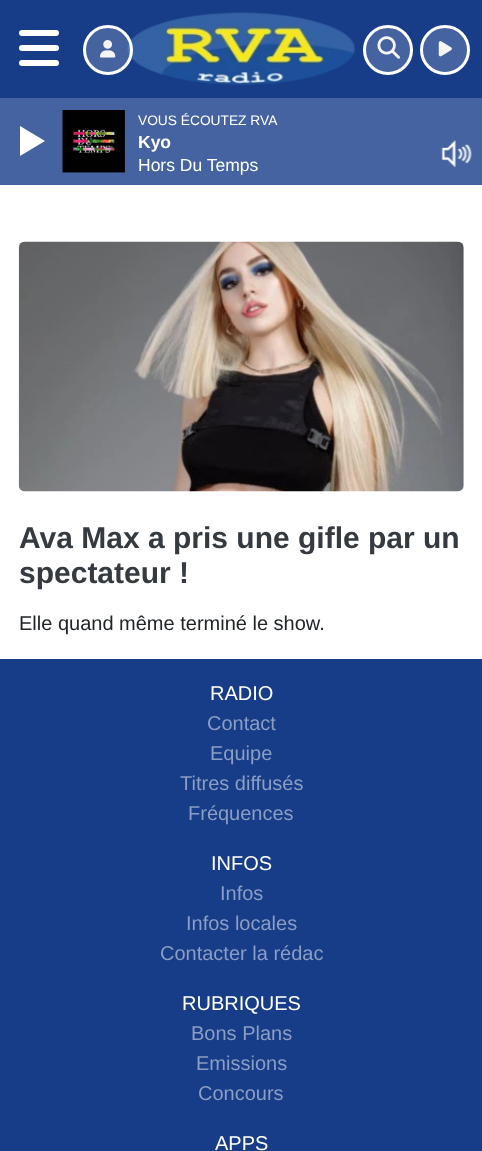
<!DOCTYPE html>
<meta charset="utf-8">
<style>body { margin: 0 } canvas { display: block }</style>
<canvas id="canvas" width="482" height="1151"></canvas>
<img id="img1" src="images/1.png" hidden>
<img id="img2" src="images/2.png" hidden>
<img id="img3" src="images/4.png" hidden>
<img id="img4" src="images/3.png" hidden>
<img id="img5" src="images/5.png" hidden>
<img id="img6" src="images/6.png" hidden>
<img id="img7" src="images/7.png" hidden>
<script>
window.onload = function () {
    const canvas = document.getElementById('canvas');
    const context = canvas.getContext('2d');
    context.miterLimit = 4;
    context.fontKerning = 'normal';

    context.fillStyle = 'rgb(255, 255, 255)';
    context.fillRect(0, 0, 482, 1151);
    context.fillStyle = 'rgb(69, 99, 160)';
    context.fillRect(0, 98, 482, 87);
    context.drawImage(document.getElementById('img1'), 62, 110, 63, 63);
    context.fillStyle = 'rgb(255, 255, 255)';
    context.beginPath();
    context.moveTo(20, 156);
    context.lineTo(20, 126);
    context.lineTo(45, 141);
    context.closePath();
    context.fill();
    context.drawImage(document.getElementById('img2'), 441, 140, 31, 28);
    context.fillStyle = 'rgb(23, 60, 136)';
    context.fillRect(0, 0, 482, 98);
    context.fillStyle = 'rgb(255, 255, 255)';
    context.beginPath();
    context.roundRect(19, 30, 40, 6, 3);
    context.fill();
    context.beginPath();
    context.roundRect(19, 45, 40, 6, 3);
    context.fill();
    context.beginPath();
    context.roundRect(19, 60, 40, 6, 3);
    context.fill();
    context.drawImage(document.getElementById('img3'), 127, 12, 228, 73);
    context.fillStyle = 'rgba(255, 255, 255, 0.2)';
    context.beginPath();
    context.arc(108, 50, 23.5, 0, 2 * Math.PI);
    context.fill();
    context.strokeStyle = 'rgb(255, 255, 255)';
    context.lineWidth = 3;
    context.stroke();
    context.drawImage(document.getElementById('img4'), 100, 40, 16, 18);
    context.fillStyle = 'rgb(69, 99, 160)';
    context.beginPath();
    context.arc(388, 50, 23.5, 0, 2 * Math.PI);
    context.fill();
    context.stroke();
    context.drawImage(document.getElementById('img5'), 377, 36, 23, 23);
    context.beginPath();
    context.arc(445, 50, 23.5, 0, 2 * Math.PI);
    context.fill();
    context.stroke();
    context.drawImage(document.getElementById('img6'), 438, 41, 14, 16);
    context.drawImage(document.getElementById('img7'), 18, 241, 446, 251);
    context.fillStyle = 'rgb(23, 60, 136)';
    context.fillRect(0, 659, 482, 492);
    context.font = '13.75px Liberation Sans';
    context.fillStyle = 'rgb(255, 255, 255)';
    context.fillText('VOUS ÉCOUTEZ RVA', 138, 125);
    context.font = 'bold 17.5px Liberation Sans';
    context.fillText('Kyo', 138, 148);
    context.font = '17.5px Liberation Sans';
    context.fillText('Hors Du Temps', 138, 171);
    context.font = 'bold 30px Liberation Sans';
    context.fillStyle = 'rgb(52, 58, 64)';
    context.fillText('Ava Max a pris une gifle par un', 19, 548);
    context.fillText('spectateur !', 19, 583);
    context.font = '20px Liberation Sans';
    context.fillStyle = 'rgb(33, 37, 41)';
    context.fillText('Elle quand même terminé le show.', 19, 630);
    context.fillStyle = 'rgb(255, 255, 255)';
    context.fillText('RADIO', 210, 700);
    context.fillStyle = 'rgb(139, 158, 196)';
    context.fillText('Contact', 207, 730);
    context.fillText('Equipe', 210, 760);
    context.fillText('Titres diffusés', 180, 790);
    context.fillText('Fréquences', 188, 820);
    context.fillStyle = 'rgb(255, 255, 255)';
    context.fillText('INFOS', 211, 870);
    context.fillStyle = 'rgb(139, 158, 196)';
    context.fillText('Infos', 220, 900);
    context.fillText('Infos locales', 186, 930);
    context.fillText('Contacter la rédac', 160, 960);
    context.fillStyle = 'rgb(255, 255, 255)';
    context.fillText('RUBRIQUES', 182, 1010);
    context.fillStyle = 'rgb(139, 158, 196)';
    context.fillText('Bons Plans', 191, 1040);
    context.fillText('Emissions', 196, 1070);
    context.fillText('Concours', 198, 1100);
    context.fillStyle = 'rgb(255, 255, 255)';
    context.fillText('APPS', 215, 1150);
};
</script>
